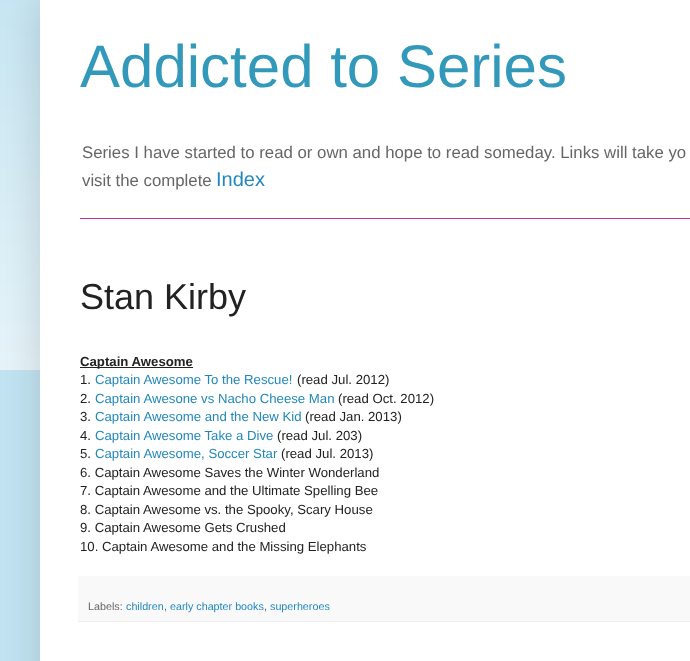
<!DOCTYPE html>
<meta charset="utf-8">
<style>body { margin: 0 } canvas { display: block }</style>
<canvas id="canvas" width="690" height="661"></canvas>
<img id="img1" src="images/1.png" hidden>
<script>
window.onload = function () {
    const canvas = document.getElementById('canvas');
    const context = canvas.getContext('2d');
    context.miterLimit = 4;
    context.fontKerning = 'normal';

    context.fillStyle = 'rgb(194, 228, 242)';
    context.fillRect(0, 0, 690, 661);
    context.drawImage(document.getElementById('img1'), 0, 0, 40, 370);
    context.fillStyle = 'rgba(0, 0, 0, 0.15)';
    context.filter = 'blur(20px)';
    context.beginPath();
    context.rect(40, 0, 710, 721);
    context.fill();
    context.filter = 'none';
    context.fillStyle = 'rgb(255, 255, 255)';
    context.fillRect(40, 0, 650, 661);
    context.fillStyle = 'rgb(187, 50, 153)';
    context.fillRect(80, 218, 610, 1);
    context.fillStyle = 'rgb(34, 34, 34)';
    context.fillRect(80, 367, 113, 1);
    context.fillStyle = 'rgb(249, 249, 249)';
    context.fillRect(78, 576, 612, 45);
    context.fillStyle = 'rgb(238, 238, 238)';
    context.fillRect(78, 621, 612, 1);
    context.font = '60px Liberation Sans';
    context.fillStyle = 'rgb(51, 153, 187)';
    context.fillText('Addicted to Series', 80, 87);
    context.font = '16.8px Liberation Sans';
    context.fillStyle = 'rgb(102, 102, 102)';
    context.fillText('Series I have started to read or own and hope to read someday. Links will take yo', 82, 158);
    context.fillText('visit the complete', 82, 186);
    context.font = '20px Liberation Sans';
    context.fillStyle = 'rgb(34, 136, 187)';
    context.fillText('Index', 216, 186);
    context.font = '36px Liberation Sans';
    context.fillStyle = 'rgb(34, 34, 34)';
    context.fillText('Stan Kirby', 80, 309);
    context.font = 'bold 13.2px Liberation Sans';
    context.fillText('Captain Awesome', 80, 366);
    context.font = '13.2px Liberation Sans';
    context.fillText('1.', 80, 384);
    context.fillStyle = 'rgb(34, 136, 187)';
    context.fillText('Captain Awesome To the Rescue!', 95, 384);
    context.fillStyle = 'rgb(34, 34, 34)';
    context.fillText('(read Jul. 2012)', 297, 384);
    context.fillText('2.', 80, 403);
    context.fillStyle = 'rgb(34, 136, 187)';
    context.fillText('Captain Awesone vs Nacho Cheese Man', 95, 403);
    context.fillStyle = 'rgb(34, 34, 34)';
    context.fillText('(read Oct. 2012)', 338, 403);
    context.fillText('3.', 80, 421);
    context.fillStyle = 'rgb(34, 136, 187)';
    context.fillText('Captain Awesome and the New Kid', 95, 421);
    context.fillStyle = 'rgb(34, 34, 34)';
    context.fillText('(read Jan. 2013)', 305, 421);
    context.fillText('4.', 80, 440);
    context.fillStyle = 'rgb(34, 136, 187)';
    context.fillText('Captain Awesome Take a Dive', 95, 440);
    context.fillStyle = 'rgb(34, 34, 34)';
    context.fillText('(read Jul. 203)', 277, 440);
    context.fillText('5.', 80, 458);
    context.fillStyle = 'rgb(34, 136, 187)';
    context.fillText('Captain Awesome, Soccer Star', 95, 458);
    context.fillStyle = 'rgb(34, 34, 34)';
    context.fillText('(read Jul. 2013)', 281, 458);
    context.fillText('6. Captain Awesome Saves the Winter Wonderland', 80, 477);
    context.fillText('7. Captain Awesome and the Ultimate Spelling Bee', 80, 495);
    context.fillText('8. Captain Awesome vs. the Spooky, Scary House', 80, 514);
    context.fillText('9. Captain Awesome Gets Crushed', 80, 532);
    context.fillText('10. Captain Awesome and the Missing Elephants', 80, 551);
    context.font = '10.75px Liberation Sans';
    context.fillStyle = 'rgb(102, 102, 102)';
    context.fillText('Labels:', 88, 610);
    context.fillStyle = 'rgb(34, 136, 187)';
    context.fillText('children', 126, 610);
    context.fillStyle = 'rgb(102, 102, 102)';
    context.fillText(',', 164, 610);
    context.fillStyle = 'rgb(34, 136, 187)';
    context.fillText('early chapter books', 170, 610);
    context.fillStyle = 'rgb(102, 102, 102)';
    context.fillText(',', 264, 610);
    context.fillStyle = 'rgb(34, 136, 187)';
    context.fillText('superheroes', 270, 610);
};
</script>
